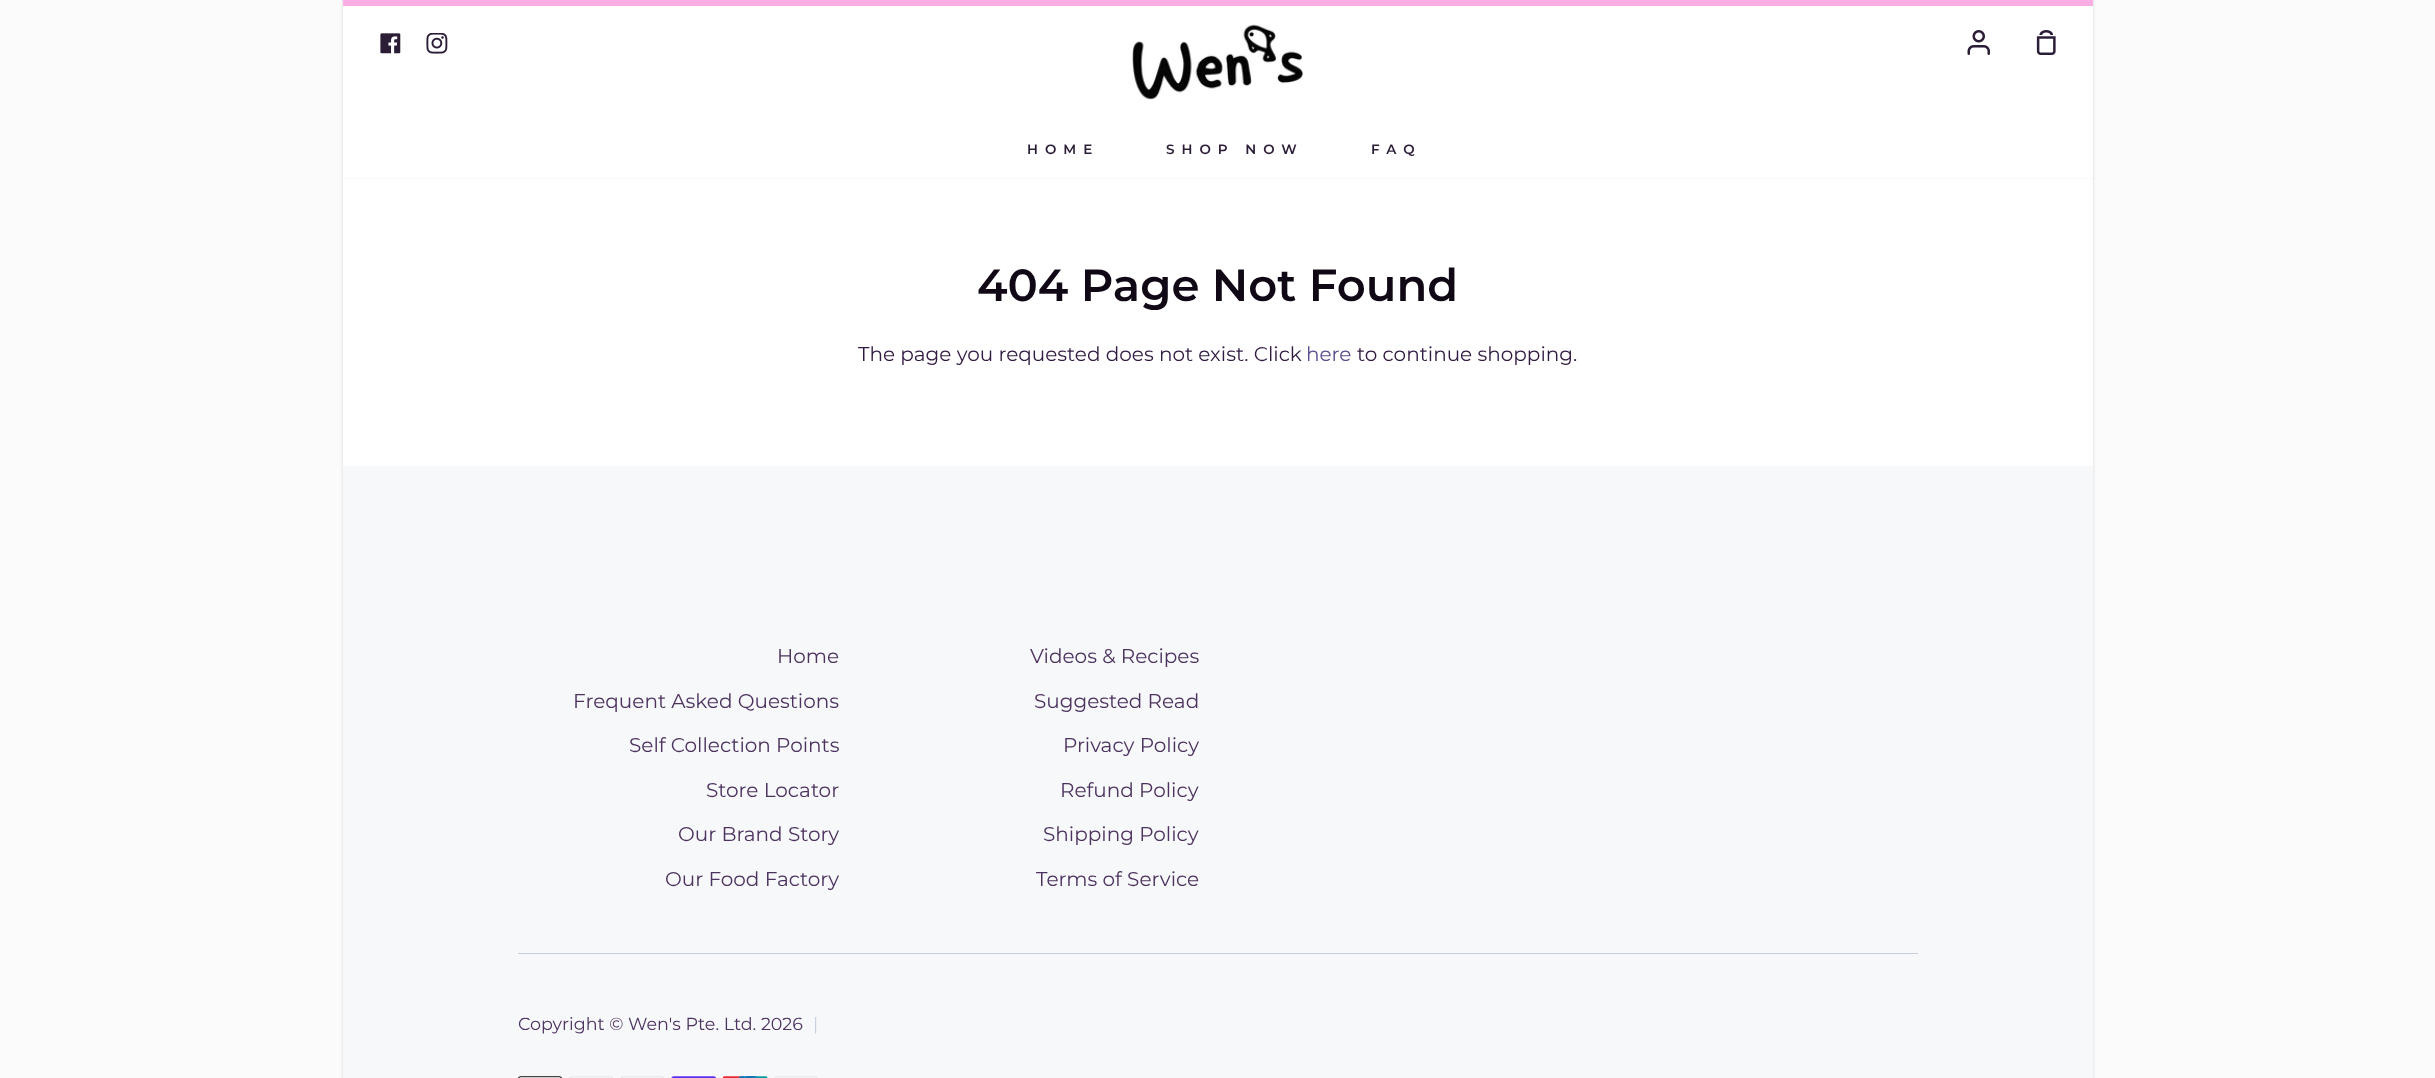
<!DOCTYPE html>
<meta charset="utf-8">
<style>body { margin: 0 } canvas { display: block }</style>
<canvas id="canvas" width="2435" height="1078"></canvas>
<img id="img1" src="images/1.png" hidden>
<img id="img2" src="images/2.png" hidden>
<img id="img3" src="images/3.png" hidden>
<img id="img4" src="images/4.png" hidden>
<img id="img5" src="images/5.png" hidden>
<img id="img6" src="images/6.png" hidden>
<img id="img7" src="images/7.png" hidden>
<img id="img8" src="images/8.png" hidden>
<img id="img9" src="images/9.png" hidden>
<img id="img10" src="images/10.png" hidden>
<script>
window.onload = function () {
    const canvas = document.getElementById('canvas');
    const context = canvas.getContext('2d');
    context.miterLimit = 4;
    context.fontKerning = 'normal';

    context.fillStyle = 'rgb(251, 251, 251)';
    context.fillRect(0, 0, 2435, 1078);
    context.fillStyle = 'rgba(0, 0, 0, 0.08)';
    context.filter = 'blur(1px)';
    context.beginPath();
    context.rect(343, -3, 1750, 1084);
    context.fill();
    context.filter = 'none';
    context.filter = 'blur(2px)';
    context.beginPath();
    context.rect(343, -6, 1750, 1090);
    context.fill();
    context.filter = 'none';
    context.fillStyle = 'rgb(255, 255, 255)';
    context.fillRect(343, 6, 1750, 460);
    context.fillStyle = 'rgb(251, 174, 230)';
    context.fillRect(343, 0, 1750, 6);
    context.fillStyle = 'rgb(247, 248, 250)';
    context.fillRect(343, 178, 1750, 1);
    context.drawImage(document.getElementById('img1'), 380, 33, 21, 21);
    context.drawImage(document.getElementById('img2'), 426, 33, 22, 21);
    context.drawImage(document.getElementById('img3'), 1132, 24, 171, 76);
    context.drawImage(document.getElementById('img4'), 1967, 30, 23, 25);
    context.drawImage(document.getElementById('img5'), 2036, 30, 20, 25);
    context.fillRect(343, 466, 1750, 612);
    context.fillStyle = 'rgb(200, 207, 221)';
    context.fillRect(518, 953, 1400, 1);
    context.drawImage(document.getElementById('img6'), 518, 1076, 44, 2);
    context.drawImage(document.getElementById('img7'), 569, 1076, 44, 2);
    context.drawImage(document.getElementById('img8'), 621, 1076, 43, 2);
    context.drawImage(document.getElementById('img9'), 671, 1076, 45, 2);
    context.drawImage(document.getElementById('img10'), 723, 1076, 45, 2);
    context.drawImage(document.getElementById('img7'), 774, 1076, 44, 2);
    context.letterSpacing = '7px';
    context.font = '600 13.5px Montserrat';
    context.fillStyle = 'rgb(44, 29, 55)';
    context.fillText('HOME', 1027, 154);
    context.fillText('SHOP NOW', 1166, 154);
    context.fillText('FAQ', 1371, 154);
    context.letterSpacing = '0px';
    context.font = '600 45px Montserrat';
    context.fillStyle = 'rgb(16, 9, 21)';
    context.fillText('404 Page Not Found', 977, 301);
    context.font = '20px Montserrat';
    context.fillStyle = 'rgb(48, 26, 65)';
    context.fillText('The page you requested does not exist. Click', 858, 361);
    context.fillStyle = 'rgb(92, 76, 141)';
    context.fillText('here', 1306, 361);
    context.fillStyle = 'rgb(48, 26, 65)';
    context.fillText('to continue shopping.', 1357, 361);
    context.fillStyle = 'rgb(76, 50, 95)';
    context.fillText('Home', 777, 663);
    context.fillText('Frequent Asked Questions', 573, 708);
    context.fillText('Self Collection Points', 629, 752);
    context.fillText('Store Locator', 706, 797);
    context.fillText('Our Brand Story', 678, 841);
    context.fillText('Our Food Factory', 665, 886);
    context.fillText('Videos & Recipes', 1030, 663);
    context.fillText('Suggested Read', 1034, 708);
    context.fillText('Privacy Policy', 1063, 752);
    context.fillText('Refund Policy', 1060, 797);
    context.fillText('Shipping Policy', 1043, 841);
    context.fillText('Terms of Service', 1036, 886);
    context.font = '17.5px Montserrat';
    context.fillText('Copyright © Wen\'s Pte. Ltd. 2026', 518, 1030);
    context.fillStyle = 'rgb(200, 207, 221)';
    context.fillText('|', 813, 1030);
};
</script>
